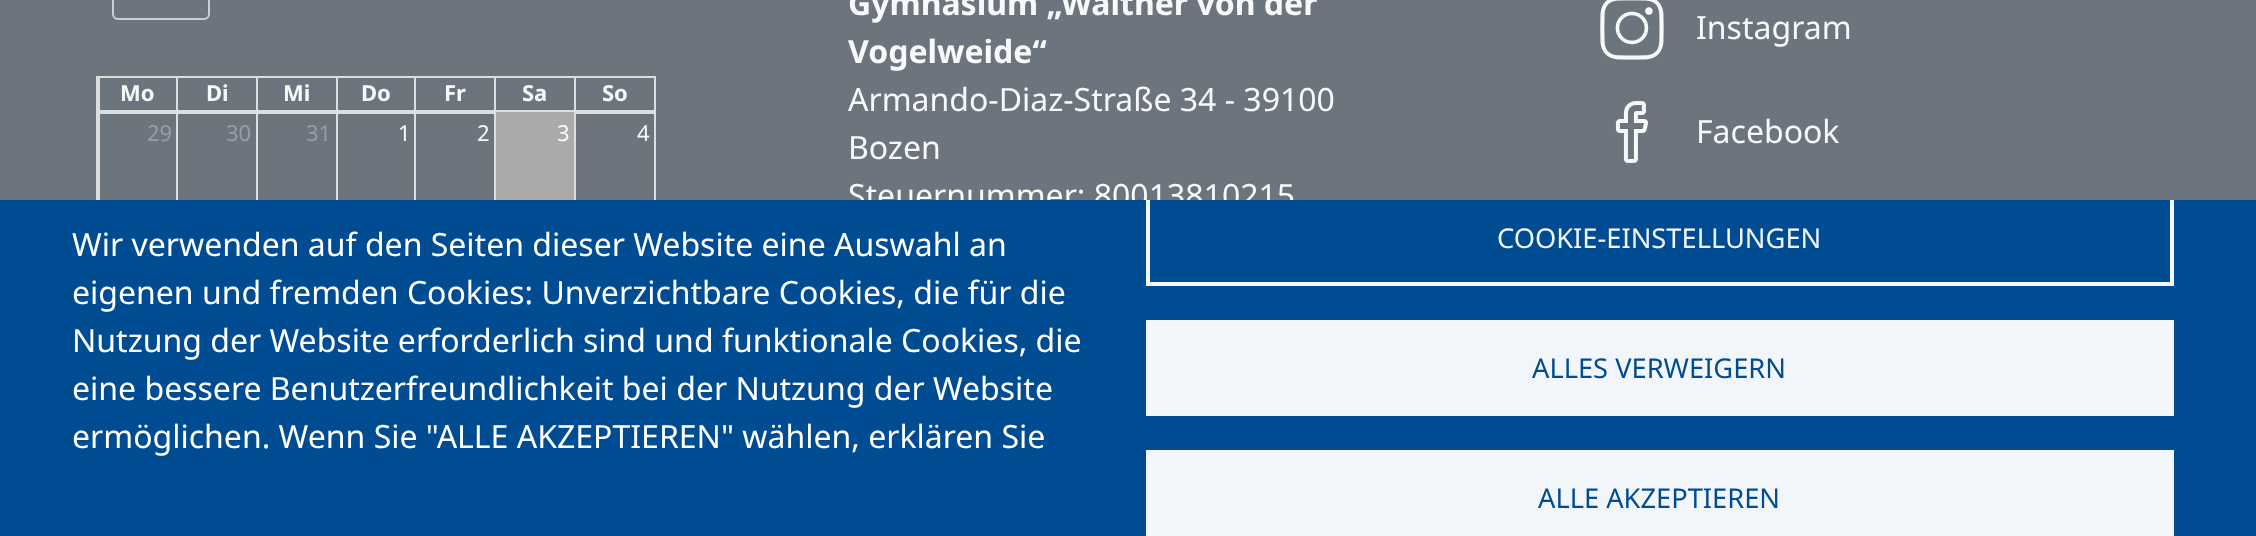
<!DOCTYPE html>
<meta charset="utf-8">
<style>body { margin: 0 } canvas { display: block }</style>
<canvas id="canvas" width="2256" height="536"></canvas>
<img id="img1" src="images/1.png" hidden>
<img id="img2" src="images/2.png" hidden>
<script>
window.onload = function () {
    const canvas = document.getElementById('canvas');
    const context = canvas.getContext('2d');
    context.miterLimit = 4;
    context.fontKerning = 'normal';

    context.fillStyle = 'rgb(108, 117, 125)';
    context.fillRect(0, 0, 2256, 536);
    context.beginPath();
    context.roundRect(113, -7, 96, 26, 5);
    context.strokeStyle = 'rgb(204, 207, 210)';
    context.lineWidth = 2;
    context.stroke();
    context.fillStyle = 'rgb(221, 221, 221)';
    context.fillRect(96, 76, 560, 2);
    context.fillRect(96, 110, 560, 2);
    context.fillRect(654, 110, 2, 90);
    context.fillRect(654, 76, 2, 36);
    context.fillRect(96, 110, 2, 90);
    context.fillRect(96, 76, 4, 36);
    context.fillRect(176, 76, 2, 36);
    context.fillRect(256, 76, 2, 36);
    context.fillRect(336, 76, 2, 36);
    context.fillRect(414, 76, 2, 36);
    context.fillRect(494, 76, 2, 128);
    context.fillRect(574, 76, 2, 36);
    context.fillRect(414, 112, 82, 2);
    context.fillRect(414, 112, 2, 92);
    context.fillRect(336, 112, 80, 2);
    context.fillRect(336, 112, 2, 92);
    context.fillRect(256, 112, 82, 2);
    context.fillRect(256, 112, 2, 92);
    context.fillRect(176, 112, 82, 2);
    context.fillRect(176, 112, 2, 92);
    context.fillRect(98, 112, 80, 2);
    context.fillRect(98, 112, 2, 92);
    context.fillStyle = 'rgb(170, 170, 170)';
    context.fillRect(496, 112, 78, 88);
    context.fillStyle = 'rgb(221, 221, 221)';
    context.fillRect(574, 112, 80, 2);
    context.fillRect(574, 112, 2, 92);
    context.drawImage(document.getElementById('img1'), 1600, 0, 64, 60);
    context.drawImage(document.getElementById('img2'), 1615, 101, 33, 62);
    context.font = 'bold 22px Noto Sans';
    context.fillStyle = 'rgb(248, 249, 250)';
    context.fillText('Mo', 120, 101);
    context.fillText('Di', 206, 101);
    context.fillText('Mi', 283, 101);
    context.fillText('Do', 361, 101);
    context.fillText('Fr', 444, 101);
    context.fillText('Sa', 522, 101);
    context.fillText('So', 602, 101);
    context.font = '22px Noto Sans';
    context.fillStyle = 'rgb(150, 157, 163)';
    context.fillText('29', 147, 141);
    context.fillText('30', 226, 141);
    context.fillText('31', 306, 141);
    context.fillStyle = 'rgb(248, 249, 250)';
    context.fillText('1', 398, 141);
    context.fillText('2', 477, 141);
    context.fillText('3', 557, 141);
    context.fillText('4', 637, 141);
    context.font = 'bold 32px Noto Sans';
    context.fillText('Gymnasium „Walther von der', 848, 15);
    context.fillText('Vogelweide“', 848, 63);
    context.font = '32px Noto Sans';
    context.fillText('Armando-Diaz-Straße 34 - 39100', 848, 111);
    context.fillText('Bozen', 848, 159);
    context.fillText('Steuernummer: 80013810215', 848, 207);
    context.fillText('Instagram', 1696, 39);
    context.fillText('Facebook', 1696, 143);
    context.fillStyle = 'rgb(0, 76, 147)';
    context.fillRect(0, 200, 2256, 336);
    context.fillStyle = 'rgb(255, 255, 255)';
    context.fillText('Wir verwenden auf den Seiten dieser Website eine Auswahl an', 72, 256);
    context.fillText('eigenen und fremden Cookies: Unverzichtbare Cookies, die für die', 72, 304);
    context.fillText('Nutzung der Website erforderlich sind und funktionale Cookies, die', 72, 352);
    context.fillText('eine bessere Benutzerfreundlichkeit bei der Nutzung der Website', 72, 400);
    context.fillText('ermöglichen. Wenn Sie "ALLE AKZEPTIEREN" wählen, erklären Sie', 72, 448);
    context.save();
    context.beginPath();
    context.rect(0, 200, 2256, 336);
    context.clip();
    context.strokeStyle = 'rgb(242, 246, 250)';
    context.lineWidth = 4;
    context.strokeRect(1148, 192, 1024, 92);
    context.restore();
    context.font = '27.25px Noto Sans';
    context.fillStyle = 'rgb(242, 246, 250)';
    context.fillText('COOKIE-EINSTELLUNGEN', 1497, 248);
    context.fillRect(1146, 320, 1028, 96);
    context.fillStyle = 'rgb(0, 76, 147)';
    context.fillText('ALLES VERWEIGERN', 1532, 378);
    context.fillStyle = 'rgb(242, 246, 250)';
    context.fillRect(1146, 450, 1028, 86);
    context.fillStyle = 'rgb(0, 76, 147)';
    context.fillText('ALLE AKZEPTIEREN', 1538, 508);
};
</script>
